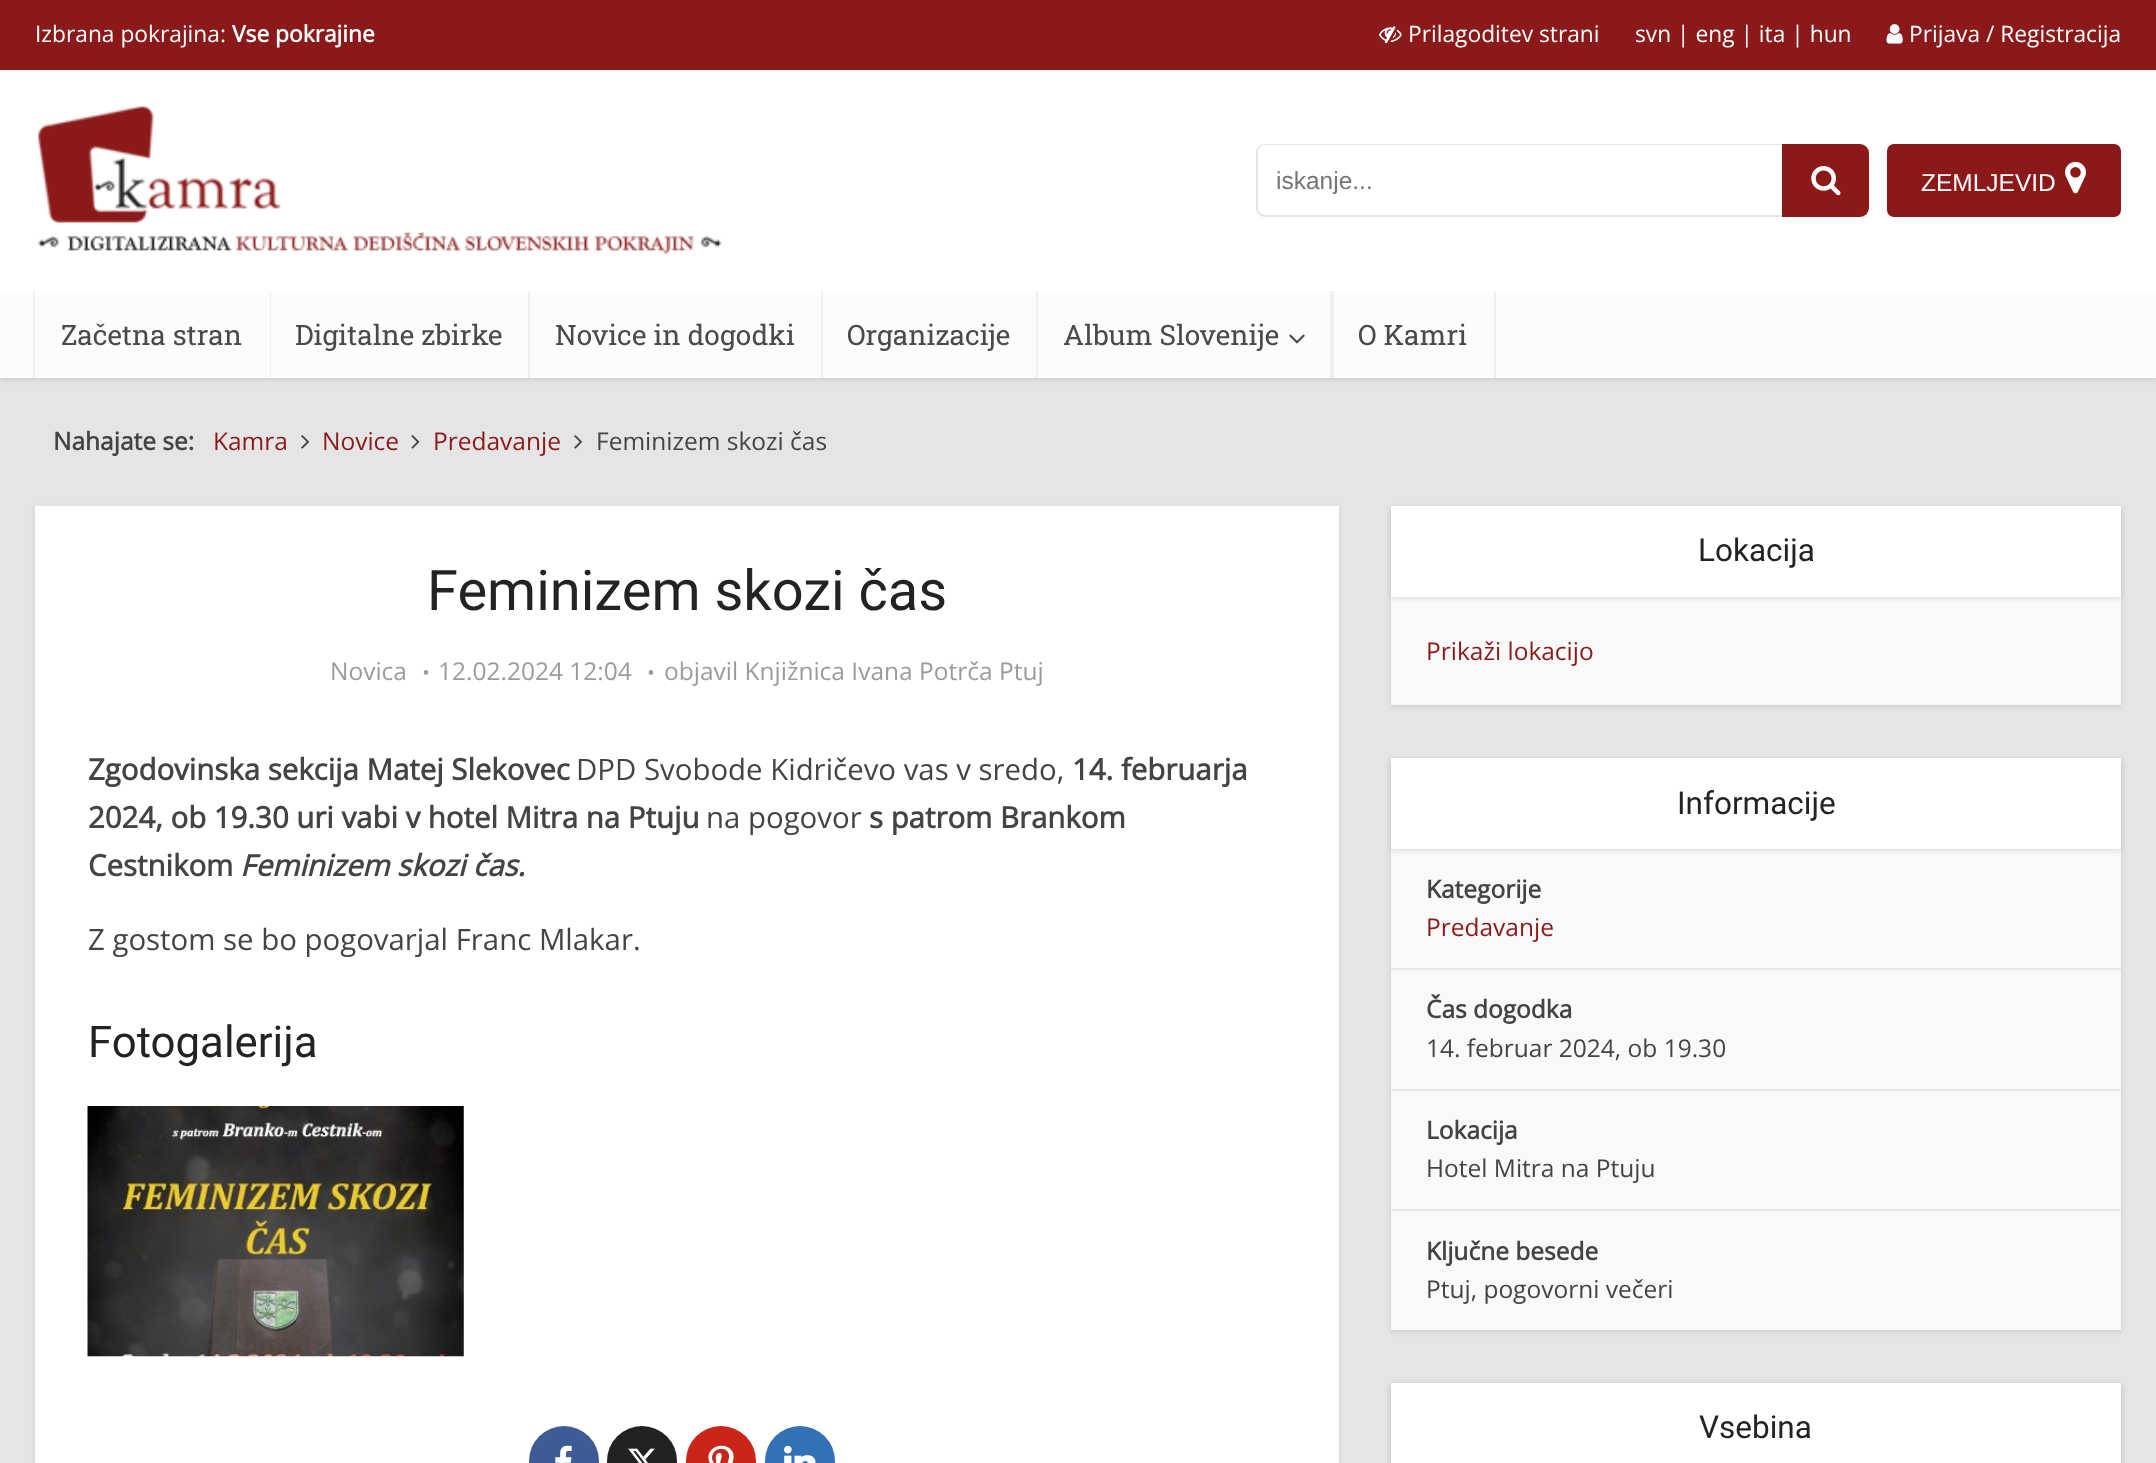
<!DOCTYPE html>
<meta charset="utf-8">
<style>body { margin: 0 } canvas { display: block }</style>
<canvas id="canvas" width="2156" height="1463"></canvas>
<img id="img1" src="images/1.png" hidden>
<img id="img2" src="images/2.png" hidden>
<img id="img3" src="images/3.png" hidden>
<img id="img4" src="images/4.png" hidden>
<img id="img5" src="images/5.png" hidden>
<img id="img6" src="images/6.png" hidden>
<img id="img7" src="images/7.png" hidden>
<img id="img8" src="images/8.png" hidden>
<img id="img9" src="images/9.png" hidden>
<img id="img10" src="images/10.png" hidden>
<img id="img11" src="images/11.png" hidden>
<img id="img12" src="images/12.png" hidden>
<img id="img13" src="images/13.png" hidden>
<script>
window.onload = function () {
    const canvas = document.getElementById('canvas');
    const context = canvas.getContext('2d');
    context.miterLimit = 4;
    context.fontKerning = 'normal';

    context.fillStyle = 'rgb(229, 229, 229)';
    context.fillRect(0, 0, 2156, 1463);
    context.fillStyle = 'rgba(0, 0, 0, 0.1)';
    context.filter = 'blur(2.5px)';
    context.beginPath();
    context.rect(0, 2, 2156, 378);
    context.fill();
    context.filter = 'none';
    context.fillStyle = 'rgb(255, 255, 255)';
    context.fillRect(0, 70, 2156, 221);
    context.fillStyle = 'rgb(140, 25, 25)';
    context.fillRect(0, 0, 2156, 70);
    context.drawImage(document.getElementById('img1'), 1379, 26, 23, 18);
    context.drawImage(document.getElementById('img2'), 1886, 24, 17, 20);
    context.drawImage(document.getElementById('img3'), 38, 106, 684, 149);
    context.fillStyle = 'rgb(230, 230, 230)';
    context.beginPath();
    context.moveTo(1265, 144);
    context.lineTo(1782, 144);
    context.lineTo(1782, 217);
    context.lineTo(1265, 217);
    context.bezierCurveTo(1260, 217, 1256, 213, 1256, 208);
    context.lineTo(1256, 152);
    context.bezierCurveTo(1256, 147, 1260, 144, 1265, 144);
    context.closePath();
    context.moveTo(1265, 145);
    context.lineTo(1782, 145);
    context.lineTo(1782, 215);
    context.lineTo(1265, 215);
    context.bezierCurveTo(1261, 215, 1258, 212, 1258, 208);
    context.lineTo(1258, 152);
    context.bezierCurveTo(1258, 148, 1261, 145, 1265, 145);
    context.closePath();
    context.fill('evenodd');
    context.fillStyle = 'rgb(140, 25, 25)';
    context.beginPath();
    context.roundRect(1782, 144, 87, 73, [0, 9, 9, 0]);
    context.fill();
    context.drawImage(document.getElementById('img4'), 1811, 166, 30, 30);
    context.beginPath();
    context.roundRect(1887, 144, 234, 73, 7);
    context.fill();
    context.drawImage(document.getElementById('img5'), 2065, 161, 21, 33);
    context.fillStyle = 'rgb(252, 252, 252)';
    context.fillRect(0, 291, 2156, 87);
    context.fillStyle = 'rgb(239, 239, 239)';
    context.fillRect(270, 291, 1, 87);
    context.fillRect(33, 291, 2, 87);
    context.fillRect(528, 291, 2, 87);
    context.fillRect(821, 291, 2, 87);
    context.fillRect(1036, 291, 2, 87);
    context.fillRect(1330, 291, 4, 87);
    context.drawImage(document.getElementById('img6'), 1289, 334, 16, 10);
    context.fillRect(1494, 291, 2, 87);
    context.drawImage(document.getElementById('img7'), 301, 435, 9, 14);
    context.drawImage(document.getElementById('img8'), 411, 435, 9, 14);
    context.drawImage(document.getElementById('img7'), 574, 435, 9, 14);
    context.fillStyle = 'rgba(0, 0, 0, 0.1)';
    context.filter = 'blur(2.5px)';
    context.beginPath();
    context.rect(35, 508, 1304, 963);
    context.fill();
    context.filter = 'none';
    context.fillStyle = 'rgb(255, 255, 255)';
    context.fillRect(35, 506, 1304, 957);
    context.drawImage(document.getElementById('img9'), 87, 1106, 377, 251);
    context.fillStyle = 'rgb(62, 91, 152)';
    context.beginPath();
    context.arc(564, 1461, 35, 0, 2 * Math.PI);
    context.fill();
    context.drawImage(document.getElementById('img10'), 555, 1445, 17, 18);
    context.fillStyle = 'rgb(34, 34, 34)';
    context.beginPath();
    context.arc(642, 1461, 35, 0, 2 * Math.PI);
    context.fill();
    context.drawImage(document.getElementById('img11'), 628, 1448, 27, 15);
    context.fillStyle = 'rgb(201, 38, 25)';
    context.beginPath();
    context.arc(721, 1461, 35, 0, 2 * Math.PI);
    context.fill();
    context.drawImage(document.getElementById('img12'), 708, 1445, 26, 18);
    context.fillStyle = 'rgb(51, 113, 183)';
    context.beginPath();
    context.arc(800, 1461, 35, 0, 2 * Math.PI);
    context.fill();
    context.drawImage(document.getElementById('img13'), 784, 1445, 32, 18);
    context.fillStyle = 'rgba(0, 0, 0, 0.1)';
    context.filter = 'blur(2.5px)';
    context.beginPath();
    context.rect(1391, 508, 730, 199);
    context.fill();
    context.filter = 'none';
    context.fillStyle = 'rgb(249, 249, 249)';
    context.fillRect(1391, 597, 730, 108);
    context.fillStyle = 'rgba(0, 0, 0, 0.1)';
    context.filter = 'blur(2.5px)';
    context.beginPath();
    context.rect(1391, 508, 730, 91);
    context.fill();
    context.filter = 'none';
    context.fillStyle = 'rgb(255, 255, 255)';
    context.fillRect(1391, 506, 730, 91);
    context.fillStyle = 'rgba(0, 0, 0, 0.1)';
    context.filter = 'blur(2.5px)';
    context.beginPath();
    context.rect(1391, 760, 730, 572);
    context.fill();
    context.filter = 'none';
    context.fillStyle = 'rgb(249, 249, 249)';
    context.fillRect(1391, 849, 730, 481);
    context.fillStyle = 'rgba(0, 0, 0, 0.1)';
    context.filter = 'blur(2.5px)';
    context.beginPath();
    context.rect(1391, 760, 730, 91);
    context.fill();
    context.filter = 'none';
    context.fillStyle = 'rgb(255, 255, 255)';
    context.fillRect(1391, 758, 730, 91);
    context.fillStyle = 'rgb(232, 232, 232)';
    context.fillRect(1391, 968, 730, 2);
    context.fillRect(1391, 1089, 730, 2);
    context.fillRect(1391, 1209, 730, 2);
    context.fillStyle = 'rgba(0, 0, 0, 0.1)';
    context.filter = 'blur(2.5px)';
    context.beginPath();
    context.rect(1391, 1384, 730, 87);
    context.fill();
    context.filter = 'none';
    context.filter = 'blur(2.5px)';
    context.beginPath();
    context.rect(1391, 1384, 730, 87);
    context.fill();
    context.filter = 'none';
    context.fillStyle = 'rgb(255, 255, 255)';
    context.fillRect(1391, 1383, 730, 80);
    context.font = '22.75px Open Sans';
    context.fillText('Izbrana pokrajina:', 35, 42);
    context.font = 'bold 22.75px Open Sans';
    context.fillText('Vse pokrajine', 232, 42);
    context.font = '22.75px Open Sans';
    context.fillText('Prilagoditev strani', 1408, 42);
    context.fillText('svn | eng | ita | hun', 1635, 42);
    context.fillText('Prijava / Registracija', 1909, 42);
    context.font = '24.5px Liberation Sans';
    context.fillStyle = 'rgb(117, 117, 117)';
    context.fillText('iskanje...', 1276, 189);
    context.fillStyle = 'rgb(255, 255, 255)';
    context.fillText('ZEMLJEVID', 1921, 191);
    context.font = '28px Roboto Slab';
    context.fillStyle = 'rgb(74, 74, 74)';
    context.fillText('Začetna stran', 61, 345);
    context.fillText('Digitalne zbirke', 295, 345);
    context.fillText('Novice in dogodki', 555, 345);
    context.fillText('Organizacije', 847, 345);
    context.fillText('Album Slovenije', 1063, 345);
    context.fillText('O Kamri', 1358, 345);
    context.font = 'bold 24.5px Open Sans';
    context.fillStyle = 'rgb(68, 68, 68)';
    context.fillText('Nahajate se:', 53, 450);
    context.font = '24.5px Open Sans';
    context.fillStyle = 'rgb(140, 25, 25)';
    context.fillText('Kamra', 213, 450);
    context.fillText('Novice', 322, 450);
    context.fillText('Predavanje', 433, 450);
    context.fillStyle = 'rgb(68, 68, 68)';
    context.fillText('Feminizem skozi čas', 596, 450);
    context.font = '56px Roboto';
    context.fillStyle = 'rgb(35, 35, 35)';
    context.fillText('Feminizem skozi čas', 427, 610);
    context.font = '24.5px Open Sans';
    context.fillStyle = 'rgb(155, 155, 155)';
    context.fillText('Novica', 330, 680);
    context.font = '21px Open Sans';
    context.fillText('•', 422, 680);
    context.font = '24.5px Open Sans';
    context.fillText('12.02.2024 12:04', 438, 680);
    context.font = '21px Open Sans';
    context.fillText('•', 647, 680);
    context.font = '24.5px Open Sans';
    context.fillText('objavil Knjižnica Ivana Potrča Ptuj', 664, 680);
    context.font = 'bold 29.4px Open Sans';
    context.fillStyle = 'rgb(68, 68, 68)';
    context.fillText('Zgodovinska sekcija Matej Slekovec', 88, 780);
    context.font = '29.4px Open Sans';
    context.fillText('DPD Svobode Kidričevo vas v sredo,', 576, 780);
    context.font = 'bold 29.4px Open Sans';
    context.fillText('14. februarja', 1072, 780);
    context.fillText('2024, ob 19.30 uri vabi v hotel Mitra na Ptuju', 88, 828);
    context.font = '29.4px Open Sans';
    context.fillText('na pogovor', 706, 828);
    context.font = 'bold 29.4px Open Sans';
    context.fillText('s patrom Brankom', 869, 828);
    context.fillText('Cestnikom', 88, 876);
    context.font = 'italic bold 29.4px Open Sans';
    context.fillText('Feminizem skozi čas.', 240, 876);
    context.font = '29.4px Open Sans';
    context.fillText('Z gostom se bo pogovarjal Franc Mlakar.', 88, 950);
    context.font = '43.75px Roboto';
    context.fillStyle = 'rgb(35, 35, 35)';
    context.fillText('Fotogalerija', 88, 1057);
    context.font = '31.5px Roboto';
    context.fillText('Lokacija', 1698, 561);
    context.font = '24.5px Open Sans';
    context.fillStyle = 'rgb(140, 25, 25)';
    context.fillText('Prikaži lokacijo', 1426, 660);
    context.font = '31.5px Roboto';
    context.fillStyle = 'rgb(35, 35, 35)';
    context.fillText('Informacije', 1677, 814);
    context.font = 'bold 24.5px Open Sans';
    context.fillStyle = 'rgb(68, 68, 68)';
    context.fillText('Kategorije', 1426, 898);
    context.font = '24.5px Open Sans';
    context.fillStyle = 'rgb(140, 25, 25)';
    context.fillText('Predavanje', 1426, 936);
    context.font = 'bold 24.5px Open Sans';
    context.fillStyle = 'rgb(68, 68, 68)';
    context.fillText('Čas dogodka', 1426, 1018);
    context.font = '24.5px Open Sans';
    context.fillText('14. februar 2024, ob 19.30', 1426, 1057);
    context.font = 'bold 24.5px Open Sans';
    context.fillText('Lokacija', 1426, 1139);
    context.font = '24.5px Open Sans';
    context.fillText('Hotel Mitra na Ptuju', 1426, 1177);
    context.font = 'bold 24.5px Open Sans';
    context.fillText('Ključne besede', 1426, 1260);
    context.font = '24.5px Open Sans';
    context.fillText('Ptuj, pogovorni večeri', 1426, 1298);
    context.font = '31.5px Roboto';
    context.fillStyle = 'rgb(35, 35, 35)';
    context.fillText('Vsebina', 1699, 1438);
};
</script>
